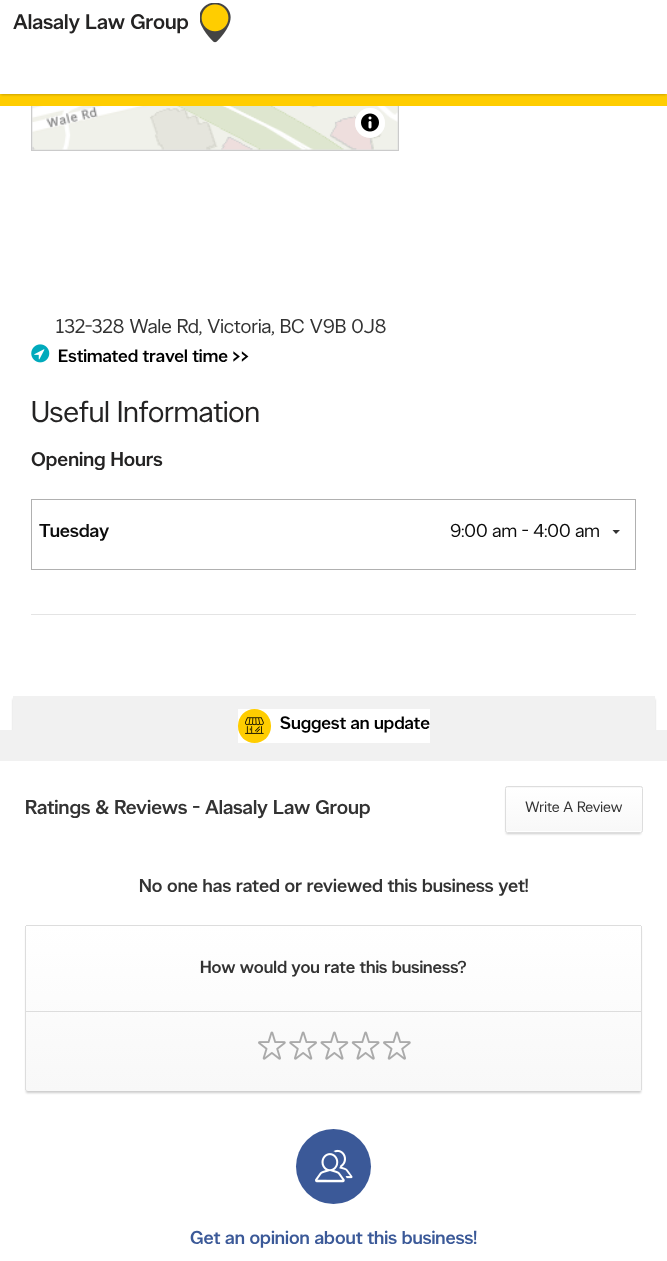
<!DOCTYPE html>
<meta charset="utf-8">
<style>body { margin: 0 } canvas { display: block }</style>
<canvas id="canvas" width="667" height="1261"></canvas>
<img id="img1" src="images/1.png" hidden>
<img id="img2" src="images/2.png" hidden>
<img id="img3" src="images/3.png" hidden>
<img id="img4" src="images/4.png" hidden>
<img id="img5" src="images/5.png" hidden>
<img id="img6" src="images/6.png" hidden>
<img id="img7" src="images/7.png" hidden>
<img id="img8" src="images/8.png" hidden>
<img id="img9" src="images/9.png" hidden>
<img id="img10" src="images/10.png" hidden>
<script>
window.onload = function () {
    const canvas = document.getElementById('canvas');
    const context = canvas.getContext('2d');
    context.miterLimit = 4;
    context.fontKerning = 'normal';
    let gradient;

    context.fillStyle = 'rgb(255, 255, 255)';
    context.fillRect(0, 0, 667, 1261);
    context.fillStyle = 'rgb(225, 225, 225)';
    context.fillRect(32, 106, 366, 44);
    context.strokeStyle = 'rgb(203, 203, 203)';
    context.strokeRect(31.5, -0.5, 367, 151);
    context.fillStyle = 'rgb(255, 205, 0)';
    context.fillRect(0, 94, 667, 12);
    context.fillStyle = 'rgba(0, 0, 0, 0.2)';
    context.filter = 'blur(1px)';
    context.beginPath();
    context.rect(1, 4, 665, 91);
    context.fill();
    context.filter = 'none';
    context.fillStyle = 'rgb(255, 255, 255)';
    context.fillRect(0, 0, 667, 94);
    context.drawImage(document.getElementById('img1'), 200, 3, 31, 40);
    context.drawImage(document.getElementById('img2'), 32, 106, 366, 44);
    context.beginPath();
    context.arc(370, 123, 15, 0, 2 * Math.PI);
    context.fill();
    context.fillStyle = 'rgba(255, 255, 255, 0.5)';
    context.beginPath();
    context.arc(370, 123, 15, 0, 2 * Math.PI);
    context.fill();
    context.drawImage(document.getElementById('img3'), 361, 113, 18, 19);
    context.drawImage(document.getElementById('img4'), 31, 344, 19, 19);
    context.fillStyle = 'rgb(228, 228, 228)';
    context.fillRect(31, 614, 605, 1);
    context.strokeStyle = 'rgb(176, 176, 176)';
    context.strokeRect(31.5, 499.5, 604, 70);
    context.fillStyle = 'rgb(51, 51, 51)';
    context.beginPath();
    context.moveTo(612.5, 530);
    context.lineTo(620, 530);
    context.lineTo(616, 534);
    context.closePath();
    context.fill();
    context.fillStyle = 'rgba(0, 0, 0, 0.2)';
    context.filter = 'blur(1px)';
    context.beginPath();
    context.rect(13, 699, 642, 59);
    context.fill();
    context.filter = 'none';
    context.fillStyle = 'rgb(241, 241, 241)';
    context.fillRect(13, 696, 642, 34);
    context.fillRect(0, 730, 667, 31);
    context.fillStyle = 'rgb(255, 255, 255)';
    context.fillRect(238, 709, 192, 34);
    context.fillStyle = 'rgb(255, 205, 0)';
    context.beginPath();
    context.roundRect(238, 709, 33, 34, 16.5);
    context.fill();
    context.drawImage(document.getElementById('img5'), 245, 717, 19, 17);
    context.fillStyle = 'rgba(0, 0, 0, 0.2)';
    context.filter = 'blur(1px)';
    context.beginPath();
    context.roundRect(506, 790, 135, 44, 1);
    context.fill();
    context.filter = 'none';
    context.save();
    context.beginPath();
    context.roundRect(505, 786, 138, 47, 2.5);
    context.clip();
    gradient = context.createLinearGradient(574, 744, 574, 788);
    gradient.addColorStop(0, 'rgb(255, 255, 255)');
    gradient.addColorStop(1, 'rgb(248, 248, 248)');
    context.fillStyle = gradient;
    context.fillRect(505, 786, 138, 2);
    context.restore();
    gradient = context.createLinearGradient(574, 788, 574, 831);
    gradient.addColorStop(0, 'rgb(255, 255, 255)');
    gradient.addColorStop(1, 'rgb(248, 248, 248)');
    context.fillStyle = gradient;
    context.fillRect(505, 788, 138, 43);
    context.save();
    context.beginPath();
    context.roundRect(505, 786, 138, 47, 2.5);
    context.clip();
    gradient = context.createLinearGradient(574, 831, 574, 875);
    gradient.addColorStop(0, 'rgb(255, 255, 255)');
    gradient.addColorStop(1, 'rgb(248, 248, 248)');
    context.fillStyle = gradient;
    context.fillRect(505, 831, 138, 2);
    context.restore();
    context.beginPath();
    context.roundRect(505.5, 786.5, 137, 46, 2);
    context.strokeStyle = 'rgb(221, 221, 221)';
    context.stroke();
    context.fillStyle = 'rgba(0, 0, 0, 0.2)';
    context.filter = 'blur(1px)';
    context.beginPath();
    context.roundRect(26, 929, 615, 164, 1);
    context.fill();
    context.filter = 'none';
    gradient = context.createLinearGradient(334, 926, 334, 1091);
    gradient.addColorStop(0, 'rgb(255, 255, 255)');
    gradient.addColorStop(1, 'rgb(248, 248, 248)');
    context.fillStyle = gradient;
    context.beginPath();
    context.moveTo(28, 926);
    context.lineTo(640, 926);
    context.bezierCurveTo(641, 926, 641, 927, 641, 928);
    context.lineTo(641, 1089);
    context.bezierCurveTo(641, 1090, 641, 1091, 640, 1091);
    context.lineTo(28, 1091);
    context.bezierCurveTo(27, 1091, 26, 1090, 26, 1089);
    context.lineTo(26, 928);
    context.bezierCurveTo(26, 927, 27, 926, 28, 926);
    context.closePath();
    context.fill();
    context.fillStyle = 'rgb(221, 221, 221)';
    context.fillRect(26, 925, 615, 1);
    context.fillRect(641, 926, 1, 164);
    context.fillRect(25, 926, 1, 164);
    context.fillRect(26, 1011, 615, 1);
    context.drawImage(document.getElementById('img6'), 258, 1031, 28, 29);
    context.drawImage(document.getElementById('img7'), 289, 1031, 28, 29);
    context.drawImage(document.getElementById('img8'), 320, 1031, 29, 29);
    context.drawImage(document.getElementById('img9'), 351, 1031, 29, 29);
    context.drawImage(document.getElementById('img6'), 383, 1031, 28, 29);
    context.fillStyle = 'rgb(59, 89, 152)';
    context.beginPath();
    context.arc(333.5, 1166.5, 37.5, 0, 2 * Math.PI);
    context.fill();
    context.drawImage(document.getElementById('img10'), 315, 1149, 38, 34);
    context.font = '500 21.25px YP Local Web';
    context.fillStyle = 'rgb(36, 35, 35)';
    context.fillText('Alasaly Law Group', 13, 29);
    context.font = '20px YP Local Web';
    context.fillStyle = 'rgb(51, 51, 51)';
    context.fillText('132-328 Wale Rd, Victoria, BC V9B 0J8', 56, 333);
    context.font = '500 18px YP Local Web';
    context.fillStyle = 'rgb(0, 0, 0)';
    context.fillText('Estimated travel time >>', 58, 362);
    context.font = '30px YP Local Web';
    context.fillStyle = 'rgb(36, 35, 35)';
    context.fillText('Useful Information', 31, 422);
    context.font = '500 20px YP Local Web';
    context.fillText('Opening Hours', 31, 466);
    context.font = '500 18.75px YP Local Web';
    context.fillStyle = 'rgb(12, 12, 12)';
    context.fillText('Tuesday', 39, 537);
    context.font = '18.75px YP Local Web';
    context.fillText('9:00 am - 4:00 am', 450, 537);
    context.font = '500 18px YP Local Web';
    context.fillStyle = 'rgb(0, 0, 0)';
    context.fillText('Suggest an update', 280, 729);
    context.font = '500 20px YP Local Web';
    context.fillStyle = 'rgb(51, 51, 51)';
    context.fillText('Ratings & Reviews - Alasaly Law Group', 25, 814);
    context.font = '15px YP Local Web';
    context.fillText('Write A Review', 525, 812);
    context.font = '500 18.75px YP Local Web';
    context.fillText('No one has rated or reviewed this business yet!', 139, 892);
    context.font = '500 17.5px YP Local Web';
    context.fillText('How would you rate this business?', 200, 973);
    context.font = '500 18.75px YP Local Web';
    context.fillStyle = 'rgb(59, 89, 152)';
    context.fillText('Get an opinion about this business!', 190, 1244);
};
</script>
